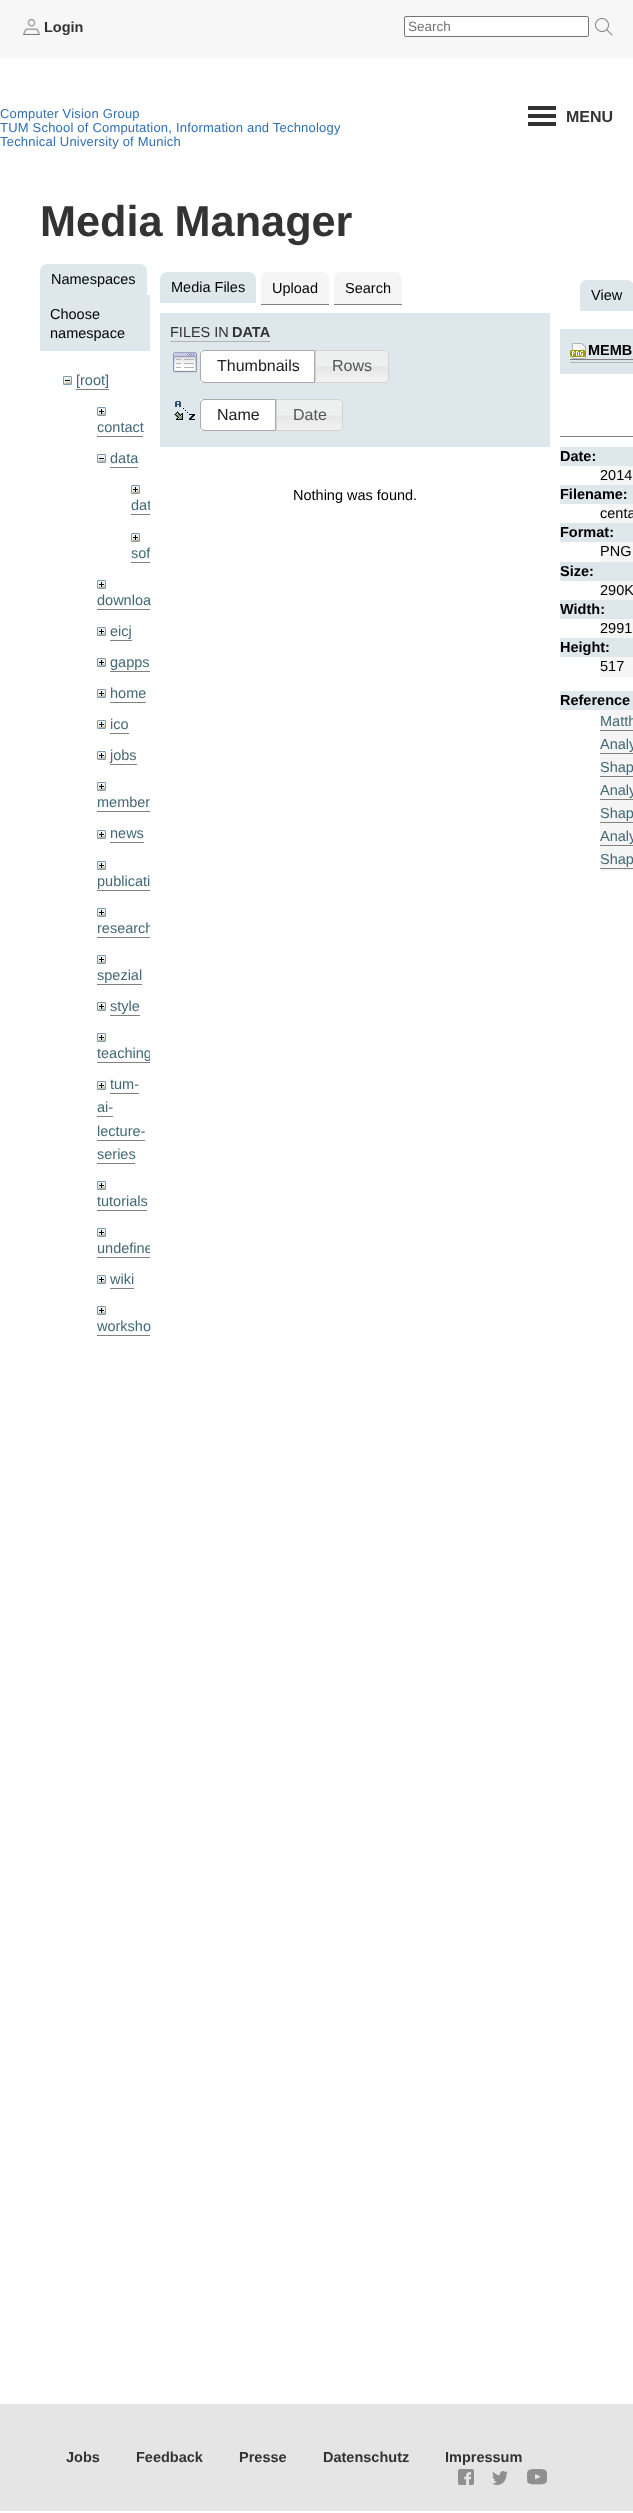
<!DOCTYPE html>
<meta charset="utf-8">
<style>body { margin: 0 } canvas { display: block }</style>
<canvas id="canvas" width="633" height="2513"></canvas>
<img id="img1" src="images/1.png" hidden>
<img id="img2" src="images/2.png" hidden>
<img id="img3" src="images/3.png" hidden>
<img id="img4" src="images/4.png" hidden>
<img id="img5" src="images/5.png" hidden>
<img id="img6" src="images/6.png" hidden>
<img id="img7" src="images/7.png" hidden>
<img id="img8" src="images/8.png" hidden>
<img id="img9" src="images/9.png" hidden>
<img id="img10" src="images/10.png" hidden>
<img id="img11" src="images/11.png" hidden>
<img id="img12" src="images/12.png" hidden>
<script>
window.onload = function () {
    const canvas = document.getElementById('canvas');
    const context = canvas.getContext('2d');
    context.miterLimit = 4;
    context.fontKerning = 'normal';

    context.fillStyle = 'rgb(255, 255, 255)';
    context.fillRect(0, 0, 633, 2513);
    context.fillStyle = 'rgb(247, 247, 247)';
    context.fillRect(0, 0, 633, 58);
    context.drawImage(document.getElementById('img1'), 23, 19, 17, 16);
    context.fillStyle = 'rgb(255, 255, 255)';
    context.beginPath();
    context.roundRect(404.5, 16.5, 184, 20, 1.5);
    context.fill();
    context.strokeStyle = 'rgb(118, 118, 118)';
    context.stroke();
    context.drawImage(document.getElementById('img2'), 595, 18, 18, 18);
    context.fillStyle = 'rgb(51, 51, 51)';
    context.fillRect(528, 106, 28, 4);
    context.fillRect(528, 114, 28, 4);
    context.fillRect(528, 122, 28, 4);
    context.fillStyle = 'rgb(222, 231, 236)';
    context.beginPath();
    context.roundRect(40, 264, 107, 31, [7, 7, 0, 0]);
    context.fill();
    context.fillRect(40, 295, 110, 56);
    context.drawImage(document.getElementById('img3'), 63, 376, 9, 9);
    context.fillStyle = 'rgb(128, 128, 128)';
    context.fillRect(76, 389, 33, 1);
    context.drawImage(document.getElementById('img4'), 97, 407, 9, 9);
    context.fillRect(97, 436, 46, 1);
    context.drawImage(document.getElementById('img3'), 97, 454, 9, 9);
    context.fillRect(110, 467, 28, 1);
    context.drawImage(document.getElementById('img4'), 131, 485, 9, 9);
    context.fillRect(131, 514, 19, 1);
    context.drawImage(document.getElementById('img4'), 131, 533, 9, 9);
    context.fillRect(131, 562, 19, 1);
    context.drawImage(document.getElementById('img4'), 97, 580, 9, 9);
    context.fillRect(97, 609, 53, 1);
    context.drawImage(document.getElementById('img4'), 97, 627, 9, 9);
    context.fillRect(110, 640, 22, 1);
    context.drawImage(document.getElementById('img4'), 97, 658, 9, 9);
    context.fillRect(110, 671, 40, 1);
    context.drawImage(document.getElementById('img4'), 97, 689, 9, 9);
    context.fillRect(110, 702, 36, 1);
    context.drawImage(document.getElementById('img4'), 97, 720, 9, 9);
    context.fillRect(110, 733, 19, 1);
    context.drawImage(document.getElementById('img4'), 97, 751, 9, 9);
    context.fillRect(110, 764, 27, 1);
    context.drawImage(document.getElementById('img4'), 97, 782, 9, 9);
    context.fillRect(97, 811, 53, 1);
    context.drawImage(document.getElementById('img4'), 97, 830, 9, 9);
    context.fillRect(110, 842, 34, 1);
    context.drawImage(document.getElementById('img4'), 97, 861, 9, 9);
    context.fillRect(97, 890, 53, 1);
    context.drawImage(document.getElementById('img4'), 97, 908, 9, 9);
    context.fillRect(97, 937, 53, 1);
    context.drawImage(document.getElementById('img4'), 97, 955, 9, 9);
    context.fillRect(97, 984, 45, 1);
    context.drawImage(document.getElementById('img4'), 97, 1002, 9, 9);
    context.fillRect(110, 1015, 30, 1);
    context.drawImage(document.getElementById('img4'), 97, 1033, 9, 9);
    context.fillRect(97, 1062, 53, 1);
    context.fillRect(110, 1093, 29, 1);
    context.fillRect(97, 1116, 16, 1);
    context.fillRect(97, 1140, 48, 1);
    context.fillRect(97, 1163, 38, 1);
    context.drawImage(document.getElementById('img4'), 97, 1081, 9, 9);
    context.drawImage(document.getElementById('img4'), 97, 1181, 9, 9);
    context.fillRect(97, 1210, 50, 1);
    context.drawImage(document.getElementById('img4'), 97, 1228, 9, 9);
    context.fillRect(97, 1257, 53, 1);
    context.drawImage(document.getElementById('img4'), 97, 1275, 9, 9);
    context.fillRect(110, 1288, 24, 1);
    context.drawImage(document.getElementById('img4'), 97, 1306, 9, 9);
    context.fillRect(97, 1335, 53, 1);
    context.fillStyle = 'rgb(222, 231, 236)';
    context.beginPath();
    context.roundRect(160, 272, 96, 31, [7, 7, 0, 0]);
    context.fill();
    context.fillStyle = 'rgb(245, 245, 245)';
    context.beginPath();
    context.roundRect(261, 272, 68, 33, [7, 7, 0, 0]);
    context.fill();
    context.fillStyle = 'rgb(128, 128, 128)';
    context.fillRect(261, 304, 68, 1);
    context.fillStyle = 'rgb(245, 245, 245)';
    context.beginPath();
    context.roundRect(334, 272, 68, 33, [7, 7, 0, 0]);
    context.fill();
    context.fillStyle = 'rgb(128, 128, 128)';
    context.fillRect(334, 304, 68, 1);
    context.fillStyle = 'rgb(222, 231, 236)';
    context.fillRect(160, 313, 390, 134);
    context.fillStyle = 'rgb(179, 179, 179)';
    context.fillRect(170, 341, 100, 1);
    context.drawImage(document.getElementById('img5'), 173, 352, 24, 21);
    context.fillStyle = 'rgb(255, 255, 255)';
    context.fillRect(200, 350, 114, 33);
    context.beginPath();
    context.roundRect(200.5, 350.5, 114, 32, [3.5, 0, 0, 3.5]);
    context.strokeStyle = 'rgb(170, 170, 170)';
    context.stroke();
    context.drawImage(document.getElementById('img6'), 316, 350, 73, 33);
    context.beginPath();
    context.roundRect(315.5, 350.5, 73, 32, [0, 3.5, 3.5, 0]);
    context.strokeStyle = 'rgb(211, 211, 211)';
    context.stroke();
    context.drawImage(document.getElementById('img7'), 174, 401, 21, 19);
    context.fillRect(200, 399, 75, 32);
    context.beginPath();
    context.roundRect(200.5, 399.5, 75, 31, [3.5, 0, 0, 3.5]);
    context.strokeStyle = 'rgb(170, 170, 170)';
    context.stroke();
    context.drawImage(document.getElementById('img8'), 277, 399, 66, 32);
    context.beginPath();
    context.roundRect(276.5, 399.5, 66, 31, [0, 3.5, 3.5, 0]);
    context.strokeStyle = 'rgb(211, 211, 211)';
    context.stroke();
    context.fillStyle = 'rgb(222, 231, 236)';
    context.beginPath();
    context.moveTo(587, 280);
    context.lineTo(627, 280);
    context.bezierCurveTo(631, 280, 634, 283, 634, 287);
    context.lineTo(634, 311);
    context.lineTo(580, 311);
    context.lineTo(580, 287);
    context.bezierCurveTo(580, 283, 583, 280, 587, 280);
    context.closePath();
    context.fill();
    context.fillRect(560, 329, 73, 45);
    context.fillStyle = 'rgb(179, 179, 179)';
    context.fillRect(570, 362, 63, 1);
    context.drawImage(document.getElementById('img9'), 570, 343, 16, 16);
    context.fillStyle = 'rgb(128, 128, 128)';
    context.fillRect(570, 359, 63, 1);
    context.fillRect(560, 436, 73, 1);
    context.fillStyle = 'rgb(222, 231, 236)';
    context.fillRect(560, 447, 73, 19);
    context.fillStyle = 'rgb(245, 245, 245)';
    context.fillRect(600, 466, 33, 19);
    context.fillStyle = 'rgb(222, 231, 236)';
    context.fillRect(560, 485, 73, 19);
    context.fillStyle = 'rgb(245, 245, 245)';
    context.fillRect(600, 504, 33, 19);
    context.fillStyle = 'rgb(222, 231, 236)';
    context.fillRect(560, 523, 73, 19);
    context.fillStyle = 'rgb(245, 245, 245)';
    context.fillRect(600, 542, 33, 20);
    context.fillStyle = 'rgb(222, 231, 236)';
    context.fillRect(560, 562, 73, 19);
    context.fillStyle = 'rgb(245, 245, 245)';
    context.fillRect(600, 581, 33, 19);
    context.fillStyle = 'rgb(222, 231, 236)';
    context.fillRect(560, 600, 73, 19);
    context.fillStyle = 'rgb(245, 245, 245)';
    context.fillRect(600, 619, 33, 19);
    context.fillStyle = 'rgb(222, 231, 236)';
    context.fillRect(560, 638, 73, 19);
    context.fillStyle = 'rgb(245, 245, 245)';
    context.fillRect(600, 657, 33, 20);
    context.fillStyle = 'rgb(222, 231, 236)';
    context.fillRect(560, 691, 73, 19);
    context.fillStyle = 'rgb(245, 245, 245)';
    context.fillRect(600, 710, 33, 161);
    context.fillStyle = 'rgb(128, 128, 128)';
    context.fillRect(600, 730, 33, 1);
    context.fillRect(600, 753, 33, 1);
    context.fillRect(600, 776, 33, 1);
    context.fillRect(600, 799, 33, 1);
    context.fillRect(600, 822, 33, 1);
    context.fillRect(600, 845, 33, 1);
    context.fillRect(600, 868, 33, 1);
    context.fillStyle = 'rgb(229, 229, 229)';
    context.fillRect(0, 2404, 633, 107);
    context.drawImage(document.getElementById('img10'), 458, 2469, 16, 16);
    context.drawImage(document.getElementById('img11'), 492, 2471, 16, 14);
    context.drawImage(document.getElementById('img12'), 527, 2469, 20, 16);
    context.font = 'bold 14.5px Liberation Sans';
    context.fillStyle = 'rgb(51, 51, 51)';
    context.fillText('Login', 44, 32);
    context.font = '13.5px Liberation Sans';
    context.fillStyle = 'rgb(117, 117, 117)';
    context.fillText('Search', 408, 31);
    context.letterSpacing = '0.2px';
    context.font = '13px Liberation Sans';
    context.fillStyle = 'rgb(48, 112, 179)';
    context.fillText('Computer Vision Group', 0, 118);
    context.fillText('TUM School of Computation, Information and Technology', 0, 132);
    context.fillText('Technical University of Munich', 0, 146);
    context.letterSpacing = '0px';
    context.font = 'bold 16px Liberation Sans';
    context.fillStyle = 'rgb(51, 51, 51)';
    context.fillText('MENU', 566, 122);
    context.font = 'bold 43.25px Liberation Sans';
    context.fillText('Media Manager', 40, 236);
    context.font = '14.5px Liberation Sans';
    context.fillStyle = 'rgb(0, 0, 0)';
    context.fillText('Namespaces', 51, 284);
    context.fillText('Choose', 50, 319);
    context.fillText('namespace', 50, 338);
    context.fillStyle = 'rgb(67, 105, 118)';
    context.fillText('[root]', 76, 385);
    context.fillText('contact', 97, 432);
    context.fillText('data', 110, 463);
    context.save();
    context.beginPath();
    context.rect(40, 361, 110, 1912);
    context.clip();
    context.fillText('dat', 131, 510);
    context.fillText('sof', 131, 558);
    context.restore();
    context.fillText('downloa', 97, 605);
    context.fillText('eicj', 110, 636);
    context.fillText('gapps', 110, 667);
    context.fillText('home', 110, 698);
    context.fillText('ico', 110, 729);
    context.fillText('jobs', 110, 760);
    context.fillText('member', 97, 807);
    context.fillText('news', 110, 838);
    context.fillText('publicati', 97, 886);
    context.save();
    context.beginPath();
    context.rect(40, 361, 110, 1912);
    context.clip();
    context.fillText('research', 97, 933);
    context.restore();
    context.fillText('spezial', 97, 980);
    context.fillText('style', 110, 1011);
    context.save();
    context.beginPath();
    context.rect(40, 361, 110, 1912);
    context.clip();
    context.fillText('teaching', 97, 1058);
    context.restore();
    context.fillText('tum-', 110, 1089);
    context.fillText('ai-', 97, 1112);
    context.fillText('lecture-', 97, 1136);
    context.fillText('series', 97, 1159);
    context.fillText('tutorials', 97, 1206);
    context.save();
    context.beginPath();
    context.rect(40, 361, 110, 1912);
    context.clip();
    context.fillText('undefine', 97, 1253);
    context.restore();
    context.fillText('wiki', 110, 1284);
    context.fillText('worksho', 97, 1331);
    context.fillStyle = 'rgb(0, 0, 0)';
    context.fillText('Media Files', 171, 292);
    context.fillText('Upload', 272, 293);
    context.fillText('Search', 345, 293);
    context.fillStyle = 'rgb(51, 51, 51)';
    context.fillText('FILES IN', 170, 337);
    context.font = 'bold 14.5px Liberation Sans';
    context.fillText('DATA', 232, 337);
    context.font = '16px Liberation Sans';
    context.fillStyle = 'rgb(33, 33, 33)';
    context.fillText('Thumbnails', 217, 371);
    context.fillStyle = 'rgb(85, 85, 85)';
    context.fillText('Rows', 332, 371);
    context.fillStyle = 'rgb(33, 33, 33)';
    context.fillText('Name', 217, 420);
    context.fillStyle = 'rgb(85, 85, 85)';
    context.fillText('Date', 293, 420);
    context.font = '14.5px Liberation Sans';
    context.fillStyle = 'rgb(0, 0, 0)';
    context.fillText('Nothing was found.', 293, 500);
    context.fillText('View', 591, 300);
    context.font = 'bold 14.5px Liberation Sans';
    context.fillText('MEMB', 588, 355);
    context.fillText('Date:', 560, 461);
    context.font = '14.5px Liberation Sans';
    context.fillText('2014', 600, 480);
    context.font = 'bold 14.5px Liberation Sans';
    context.fillText('Filename:', 560, 499);
    context.font = '14.5px Liberation Sans';
    context.fillText('centa', 600, 518);
    context.font = 'bold 14.5px Liberation Sans';
    context.fillText('Format:', 560, 537);
    context.font = '14.5px Liberation Sans';
    context.fillText('PNG', 600, 556);
    context.font = 'bold 14.5px Liberation Sans';
    context.fillText('Size:', 560, 576);
    context.font = '14.5px Liberation Sans';
    context.fillText('290K', 600, 595);
    context.font = 'bold 14.5px Liberation Sans';
    context.fillText('Width:', 560, 614);
    context.font = '14.5px Liberation Sans';
    context.fillText('2991', 600, 633);
    context.font = 'bold 14.5px Liberation Sans';
    context.fillText('Height:', 560, 652);
    context.font = '14.5px Liberation Sans';
    context.fillText('517', 600, 671);
    context.font = 'bold 14.5px Liberation Sans';
    context.fillText('Reference', 560, 705);
    context.font = '14.5px Liberation Sans';
    context.fillStyle = 'rgb(67, 105, 118)';
    context.fillText('Matth', 600, 726);
    context.fillText('Analy', 600, 749);
    context.fillText('Shap', 600, 772);
    context.fillText('Analy', 600, 795);
    context.fillText('Shap', 600, 818);
    context.fillText('Analy', 600, 841);
    context.fillText('Shap', 600, 864);
    context.font = 'bold 14.5px Liberation Sans';
    context.fillStyle = 'rgb(51, 51, 51)';
    context.fillText('Jobs', 66, 2462);
    context.fillText('Feedback', 136, 2462);
    context.fillText('Presse', 239, 2462);
    context.fillText('Datenschutz', 323, 2462);
    context.fillText('Impressum', 445, 2462);
};
</script>
